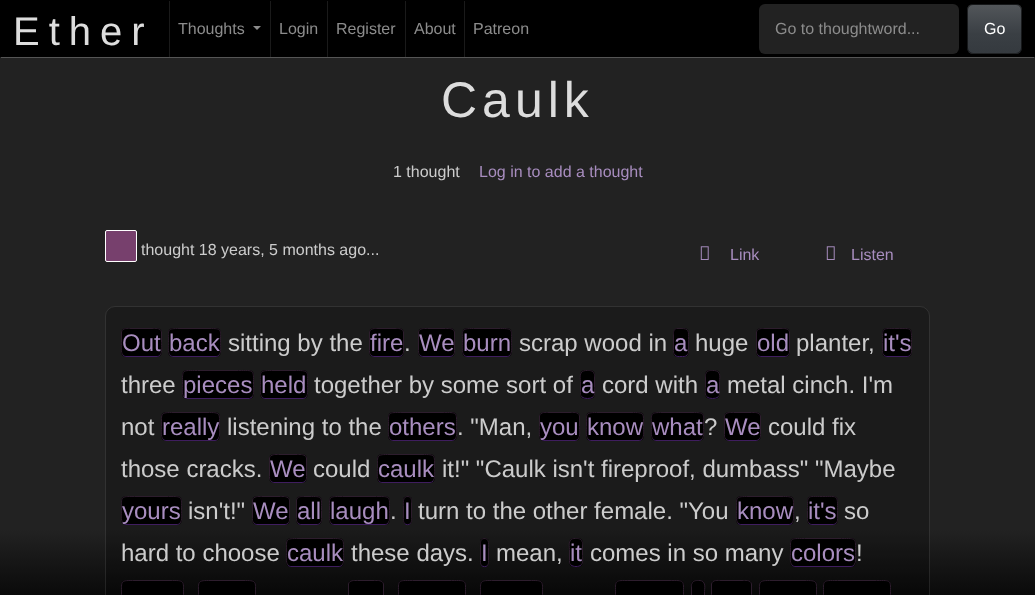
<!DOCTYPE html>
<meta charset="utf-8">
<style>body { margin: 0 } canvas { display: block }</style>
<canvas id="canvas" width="1035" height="595"></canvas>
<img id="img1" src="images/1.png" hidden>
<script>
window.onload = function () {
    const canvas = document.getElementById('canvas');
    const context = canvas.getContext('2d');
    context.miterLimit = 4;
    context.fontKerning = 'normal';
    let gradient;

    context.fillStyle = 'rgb(255, 255, 255)';
    context.fillRect(0, 0, 1035, 595);
    gradient = context.createLinearGradient(518, 595, 518, 0);
    gradient.addColorStop(0, 'rgb(10, 10, 10)');
    gradient.addColorStop(0.1, 'rgb(32, 32, 32)');
    gradient.addColorStop(0.11, 'rgb(34, 34, 34)');
    gradient.addColorStop(0.98, 'rgb(34, 34, 34)');
    context.fillStyle = gradient;
    context.fillRect(0, 58, 1035, 537);
    context.fillStyle = 'rgb(0, 0, 0)';
    context.fillRect(0, 0, 1035, 58);
    context.fillStyle = 'rgb(85, 85, 85)';
    context.beginPath();
    context.moveTo(1035, 58);
    context.lineTo(0, 58);
    context.lineTo(1, 57);
    context.lineTo(1034, 57);
    context.closePath();
    context.fill();
    context.fillStyle = 'rgba(0, 0, 0, 0.6)';
    context.beginPath();
    context.moveTo(0, 58);
    context.lineTo(0, 0);
    context.lineTo(1, 1);
    context.lineTo(1, 57);
    context.closePath();
    context.fill();
    context.fillStyle = 'rgb(26, 26, 26)';
    context.fillRect(169, 1, 1, 56);
    context.fillStyle = 'rgb(140, 140, 140)';
    context.beginPath();
    context.moveTo(253, 26);
    context.lineTo(261, 26);
    context.lineTo(257, 30);
    context.closePath();
    context.fill();
    context.fillStyle = 'rgb(26, 26, 26)';
    context.fillRect(270, 1, 1, 56);
    context.fillRect(327, 1, 1, 56);
    context.fillRect(405, 1, 1, 56);
    context.fillRect(464, 1, 1, 56);
    context.fillStyle = 'rgb(34, 34, 34)';
    context.beginPath();
    context.roundRect(759, 4, 200, 50, 6);
    context.fill();
    context.save();
    context.beginPath();
    context.roundRect(967, 4, 55, 50, 6);
    context.clip();
    gradient = context.createLinearGradient(995, -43, 995, 5);
    gradient.addColorStop(0, 'rgb(82, 86, 90)');
    gradient.addColorStop(0.6, 'rgb(58, 63, 68)');
    gradient.addColorStop(1, 'rgb(53, 58, 63)');
    context.fillStyle = gradient;
    context.fillRect(967, 4, 55, 1);
    gradient = context.createLinearGradient(995, 5, 995, 53);
    gradient.addColorStop(0, 'rgb(82, 86, 90)');
    gradient.addColorStop(0.6, 'rgb(58, 63, 68)');
    gradient.addColorStop(1, 'rgb(53, 58, 63)');
    context.fillStyle = gradient;
    context.fillRect(967, 5, 55, 48);
    gradient = context.createLinearGradient(995, 53, 995, 101);
    gradient.addColorStop(0, 'rgb(82, 86, 90)');
    gradient.addColorStop(0.6, 'rgb(58, 63, 68)');
    gradient.addColorStop(1, 'rgb(53, 58, 63)');
    context.fillStyle = gradient;
    context.fillRect(967, 53, 55, 1);
    context.restore();
    context.beginPath();
    context.roundRect(967.5, 4.5, 54, 49, 5.5);
    context.strokeStyle = 'rgba(0, 0, 0, 0.6)';
    context.stroke();
    context.fillStyle = 'rgb(119, 64, 109)';
    context.beginPath();
    context.roundRect(105.5, 230.5, 31, 31, 1.5);
    context.fill();
    context.strokeStyle = 'rgb(255, 255, 255)';
    context.stroke();
    context.drawImage(document.getElementById('img1'), 700, 246, 9, 14);
    context.drawImage(document.getElementById('img1'), 826, 246, 9, 14);
    context.fillStyle = 'rgba(0, 0, 0, 0.2)';
    context.beginPath();
    context.roundRect(105, 306, 825, 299, 10);
    context.fill();
    context.beginPath();
    context.roundRect(105.5, 306.5, 824, 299, 9.5);
    context.strokeStyle = 'rgba(255, 255, 255, 0.1)';
    context.stroke();
    context.fillStyle = 'rgb(0, 0, 0)';
    context.beginPath();
    context.roundRect(121, 328, 41, 29, 5);
    context.fill();
    context.beginPath();
    context.moveTo(160, 355);
    context.bezierCurveTo(159.5, 356, 158, 356.5, 157, 356.5);
    context.lineTo(126, 356.5);
    context.bezierCurveTo(125, 356.5, 123.5, 356, 123, 355);
    context.strokeStyle = 'rgb(63, 29, 95)';
    context.stroke();
    context.beginPath();
    context.moveTo(123, 355);
    context.bezierCurveTo(120.5, 352.5, 121.5, 345.5, 121.5, 342.5);
    context.lineTo(121.5, 332);
    context.bezierCurveTo(122.5, 327.5, 128, 328.5, 131, 328.5);
    context.lineTo(152, 328.5);
    context.bezierCurveTo(155, 328.5, 160.5, 327.5, 161.5, 332);
    context.lineTo(161.5, 342.5);
    context.bezierCurveTo(161.5, 345.5, 162.5, 352.5, 160, 355);
    context.strokeStyle = 'rgb(45, 29, 45)';
    context.stroke();
    context.beginPath();
    context.roundRect(168, 328, 53, 29, 5);
    context.fill();
    context.beginPath();
    context.moveTo(219, 355);
    context.bezierCurveTo(218.5, 356, 217, 356.5, 216, 356.5);
    context.lineTo(173, 356.5);
    context.bezierCurveTo(172, 356.5, 170.5, 356, 170, 355);
    context.strokeStyle = 'rgb(63, 29, 95)';
    context.stroke();
    context.beginPath();
    context.moveTo(170, 355);
    context.bezierCurveTo(167.5, 352.5, 168.5, 345.5, 168.5, 342.5);
    context.bezierCurveTo(168.5, 329, 166.5, 328.5, 180, 328.5);
    context.lineTo(209, 328.5);
    context.bezierCurveTo(222.5, 328.5, 220.5, 329, 220.5, 342.5);
    context.bezierCurveTo(220.5, 345.5, 221.5, 352.5, 219, 355);
    context.strokeStyle = 'rgb(45, 29, 45)';
    context.stroke();
    context.beginPath();
    context.roundRect(369, 328, 35, 29, 5);
    context.fill();
    context.beginPath();
    context.moveTo(402, 355);
    context.bezierCurveTo(401.5, 356, 400, 356.5, 399, 356.5);
    context.lineTo(374, 356.5);
    context.bezierCurveTo(373, 356.5, 371.5, 356, 371, 355);
    context.strokeStyle = 'rgb(63, 29, 95)';
    context.stroke();
    context.beginPath();
    context.moveTo(371, 355);
    context.bezierCurveTo(369, 353.5, 369.5, 351, 369.5, 349);
    context.lineTo(369.5, 332);
    context.bezierCurveTo(370.5, 328, 375, 328.5, 378, 328.5);
    context.lineTo(395, 328.5);
    context.bezierCurveTo(398, 328.5, 402.5, 328, 403.5, 332);
    context.lineTo(403.5, 349);
    context.bezierCurveTo(403.5, 351, 404, 353.5, 402, 355);
    context.strokeStyle = 'rgb(45, 29, 45)';
    context.stroke();
    context.beginPath();
    context.roundRect(418, 328, 37, 29, 5);
    context.fill();
    context.beginPath();
    context.moveTo(453, 355);
    context.bezierCurveTo(452.5, 356, 451, 356.5, 450, 356.5);
    context.lineTo(423, 356.5);
    context.bezierCurveTo(422, 356.5, 420.5, 356, 420, 355);
    context.strokeStyle = 'rgb(63, 29, 95)';
    context.stroke();
    context.beginPath();
    context.moveTo(420, 355);
    context.bezierCurveTo(418, 353.5, 418.5, 351, 418.5, 349);
    context.lineTo(418.5, 332);
    context.bezierCurveTo(419.5, 328, 424, 328.5, 427.5, 328.5);
    context.lineTo(445.5, 328.5);
    context.bezierCurveTo(449, 328.5, 453.5, 328, 454.5, 332);
    context.lineTo(454.5, 349);
    context.bezierCurveTo(454.5, 351, 455, 353.5, 453, 355);
    context.strokeStyle = 'rgb(45, 29, 45)';
    context.stroke();
    context.beginPath();
    context.roundRect(462, 328, 50, 29, 5);
    context.fill();
    context.beginPath();
    context.moveTo(510, 355);
    context.bezierCurveTo(509.5, 356, 508, 356.5, 507, 356.5);
    context.lineTo(467, 356.5);
    context.bezierCurveTo(466, 356.5, 464.5, 356, 464, 355);
    context.strokeStyle = 'rgb(63, 29, 95)';
    context.stroke();
    context.beginPath();
    context.moveTo(464, 355);
    context.bezierCurveTo(461.5, 352.5, 462.5, 345.5, 462.5, 342.5);
    context.bezierCurveTo(462.5, 329.5, 460.5, 328.5, 473.5, 328.5);
    context.lineTo(500.5, 328.5);
    context.bezierCurveTo(513.5, 328.5, 511.5, 329.5, 511.5, 342.5);
    context.bezierCurveTo(511.5, 345.5, 512.5, 352.5, 510, 355);
    context.strokeStyle = 'rgb(45, 29, 45)';
    context.stroke();
    context.beginPath();
    context.roundRect(673, 328, 16, 29, 5);
    context.fill();
    context.beginPath();
    context.moveTo(687, 355);
    context.bezierCurveTo(685.5, 357, 683, 356.5, 681, 356.5);
    context.bezierCurveTo(679, 356.5, 676.5, 357, 675, 355);
    context.strokeStyle = 'rgb(63, 29, 95)';
    context.stroke();
    context.beginPath();
    context.moveTo(675, 355);
    context.bezierCurveTo(673, 353.5, 673.5, 351, 673.5, 349);
    context.lineTo(673.5, 336);
    context.bezierCurveTo(673.5, 333, 673, 329.5, 676.5, 328.5);
    context.lineTo(681, 328.5);
    context.bezierCurveTo(689.5, 328.5, 688.5, 331, 688.5, 339.5);
    context.lineTo(688.5, 349);
    context.bezierCurveTo(688.5, 351, 689, 353.5, 687, 355);
    context.strokeStyle = 'rgb(45, 29, 45)';
    context.stroke();
    context.beginPath();
    context.roundRect(756, 328, 34, 29, 5);
    context.fill();
    context.beginPath();
    context.moveTo(788, 355);
    context.bezierCurveTo(787.5, 356, 786, 356.5, 785, 356.5);
    context.lineTo(761, 356.5);
    context.bezierCurveTo(760, 356.5, 758.5, 356, 758, 355);
    context.strokeStyle = 'rgb(63, 29, 95)';
    context.stroke();
    context.beginPath();
    context.moveTo(758, 355);
    context.bezierCurveTo(756, 353.5, 756.5, 351, 756.5, 349);
    context.lineTo(756.5, 332);
    context.bezierCurveTo(757.5, 328, 762, 328.5, 765, 328.5);
    context.lineTo(781, 328.5);
    context.bezierCurveTo(784, 328.5, 788.5, 328, 789.5, 332);
    context.lineTo(789.5, 349);
    context.bezierCurveTo(789.5, 351, 790, 353.5, 788, 355);
    context.strokeStyle = 'rgb(45, 29, 45)';
    context.stroke();
    context.beginPath();
    context.roundRect(882, 328, 30, 29, 5);
    context.fill();
    context.beginPath();
    context.moveTo(910, 355);
    context.bezierCurveTo(909.5, 356, 908, 356.5, 907, 356.5);
    context.lineTo(887, 356.5);
    context.bezierCurveTo(886, 356.5, 884.5, 356, 884, 355);
    context.strokeStyle = 'rgb(63, 29, 95)';
    context.stroke();
    context.beginPath();
    context.moveTo(884, 355);
    context.bezierCurveTo(882, 353.5, 882.5, 351, 882.5, 349);
    context.lineTo(882.5, 342.5);
    context.bezierCurveTo(882.5, 327, 881.5, 328.5, 897, 328.5);
    context.bezierCurveTo(912.5, 328.5, 911.5, 327, 911.5, 342.5);
    context.lineTo(911.5, 349);
    context.bezierCurveTo(911.5, 351, 912, 353.5, 910, 355);
    context.strokeStyle = 'rgb(45, 29, 45)';
    context.stroke();
    context.beginPath();
    context.roundRect(182, 370, 72, 29, 5);
    context.fill();
    context.beginPath();
    context.moveTo(252, 397);
    context.lineTo(249.5, 398.5);
    context.lineTo(186.5, 398.5);
    context.lineTo(184, 397);
    context.strokeStyle = 'rgb(63, 29, 95)';
    context.stroke();
    context.beginPath();
    context.moveTo(184, 397);
    context.bezierCurveTo(181.5, 394.5, 182.5, 387.5, 182.5, 384.5);
    context.bezierCurveTo(182.5, 369, 181.5, 370.5, 197.5, 370.5);
    context.lineTo(238.5, 370.5);
    context.bezierCurveTo(254.5, 370.5, 253.5, 369, 253.5, 384.5);
    context.bezierCurveTo(253.5, 387.5, 254.5, 394.5, 252, 397);
    context.strokeStyle = 'rgb(45, 29, 45)';
    context.stroke();
    context.beginPath();
    context.roundRect(260, 370, 48, 29, 5);
    context.fill();
    context.beginPath();
    context.moveTo(306, 397);
    context.bezierCurveTo(305.5, 398, 304, 398.5, 303, 398.5);
    context.lineTo(265, 398.5);
    context.bezierCurveTo(264, 398.5, 262.5, 398, 262, 397);
    context.strokeStyle = 'rgb(63, 29, 95)';
    context.stroke();
    context.beginPath();
    context.moveTo(262, 397);
    context.bezierCurveTo(259.5, 394.5, 260.5, 387.5, 260.5, 384.5);
    context.bezierCurveTo(260.5, 371.5, 258.5, 370.5, 271.5, 370.5);
    context.lineTo(296.5, 370.5);
    context.bezierCurveTo(309.5, 370.5, 307.5, 371.5, 307.5, 384.5);
    context.bezierCurveTo(307.5, 387.5, 308.5, 394.5, 306, 397);
    context.strokeStyle = 'rgb(45, 29, 45)';
    context.stroke();
    context.beginPath();
    context.roundRect(580, 370, 15, 29, 5);
    context.fill();
    context.beginPath();
    context.moveTo(593, 397);
    context.bezierCurveTo(591, 399, 584, 399, 582, 397);
    context.strokeStyle = 'rgb(63, 29, 95)';
    context.stroke();
    context.beginPath();
    context.moveTo(582, 397);
    context.bezierCurveTo(580, 395.5, 580.5, 393, 580.5, 391);
    context.lineTo(580.5, 381.5);
    context.bezierCurveTo(580.5, 379, 579.5, 375.5, 581, 373);
    context.bezierCurveTo(582.5, 370.5, 585, 370.5, 587.5, 370.5);
    context.bezierCurveTo(590, 370.5, 593, 370.5, 594, 373.5);
    context.bezierCurveTo(595, 375, 594.5, 376.5, 594.5, 378);
    context.lineTo(594.5, 387.5);
    context.bezierCurveTo(594.5, 390.5, 595.5, 395, 593, 397);
    context.strokeStyle = 'rgb(45, 29, 45)';
    context.stroke();
    context.beginPath();
    context.roundRect(705, 370, 15, 29, 5);
    context.fill();
    context.beginPath();
    context.moveTo(718, 397);
    context.bezierCurveTo(716, 399, 709, 399, 707, 397);
    context.strokeStyle = 'rgb(63, 29, 95)';
    context.stroke();
    context.beginPath();
    context.moveTo(707, 397);
    context.bezierCurveTo(704.5, 395, 705.5, 390.5, 705.5, 387.5);
    context.lineTo(705.5, 378);
    context.bezierCurveTo(705.5, 376.5, 705, 375, 706, 373.5);
    context.bezierCurveTo(707, 370.5, 710, 370.5, 712.5, 370.5);
    context.bezierCurveTo(715, 370.5, 717.5, 370.5, 719, 373);
    context.bezierCurveTo(720.5, 375.5, 719.5, 379, 719.5, 381.5);
    context.lineTo(719.5, 391);
    context.bezierCurveTo(719.5, 393, 720, 395.5, 718, 397);
    context.strokeStyle = 'rgb(45, 29, 45)';
    context.stroke();
    context.beginPath();
    context.roundRect(161, 412, 59, 29, 5);
    context.fill();
    context.beginPath();
    context.moveTo(218, 439);
    context.bezierCurveTo(217.5, 440, 216, 440.5, 215, 440.5);
    context.lineTo(166, 440.5);
    context.bezierCurveTo(165, 440.5, 163.5, 440, 163, 439);
    context.strokeStyle = 'rgb(63, 29, 95)';
    context.stroke();
    context.beginPath();
    context.moveTo(163, 439);
    context.bezierCurveTo(160.5, 436.5, 161.5, 429.5, 161.5, 426.5);
    context.bezierCurveTo(161.5, 412.5, 160, 412.5, 174, 412.5);
    context.lineTo(207, 412.5);
    context.bezierCurveTo(221, 412.5, 219.5, 412.5, 219.5, 426.5);
    context.bezierCurveTo(219.5, 429.5, 220.5, 436.5, 218, 439);
    context.strokeStyle = 'rgb(45, 29, 45)';
    context.stroke();
    context.beginPath();
    context.roundRect(388, 412, 69, 29, 5);
    context.fill();
    context.beginPath();
    context.moveTo(455, 439);
    context.bezierCurveTo(454.5, 440, 453, 440.5, 452, 440.5);
    context.lineTo(393, 440.5);
    context.bezierCurveTo(392, 440.5, 390.5, 440, 390, 439);
    context.strokeStyle = 'rgb(63, 29, 95)';
    context.stroke();
    context.beginPath();
    context.moveTo(390, 439);
    context.bezierCurveTo(387.5, 436.5, 388.5, 429.5, 388.5, 426.5);
    context.bezierCurveTo(388.5, 411.5, 387, 412.5, 403, 412.5);
    context.lineTo(442, 412.5);
    context.bezierCurveTo(458, 412.5, 456.5, 411.5, 456.5, 426.5);
    context.bezierCurveTo(456.5, 429.5, 457.5, 436.5, 455, 439);
    context.strokeStyle = 'rgb(45, 29, 45)';
    context.stroke();
    context.beginPath();
    context.roundRect(539, 412, 41, 29, 5);
    context.fill();
    context.beginPath();
    context.moveTo(578, 439);
    context.bezierCurveTo(577.5, 440, 576, 440.5, 575, 440.5);
    context.lineTo(544, 440.5);
    context.bezierCurveTo(543, 440.5, 541.5, 440, 541, 439);
    context.strokeStyle = 'rgb(63, 29, 95)';
    context.stroke();
    context.beginPath();
    context.moveTo(541, 439);
    context.bezierCurveTo(538.5, 436.5, 539.5, 429.5, 539.5, 426.5);
    context.lineTo(539.5, 416);
    context.bezierCurveTo(540.5, 411.5, 546, 412.5, 549, 412.5);
    context.lineTo(570, 412.5);
    context.bezierCurveTo(573, 412.5, 578.5, 411.5, 579.5, 416);
    context.lineTo(579.5, 426.5);
    context.bezierCurveTo(579.5, 429.5, 580.5, 436.5, 578, 439);
    context.strokeStyle = 'rgb(45, 29, 45)';
    context.stroke();
    context.beginPath();
    context.roundRect(586, 412, 58, 29, 5);
    context.fill();
    context.beginPath();
    context.moveTo(642, 439);
    context.bezierCurveTo(641.5, 440, 640, 440.5, 639, 440.5);
    context.lineTo(591, 440.5);
    context.bezierCurveTo(590, 440.5, 588.5, 440, 588, 439);
    context.strokeStyle = 'rgb(63, 29, 95)';
    context.stroke();
    context.beginPath();
    context.moveTo(588, 439);
    context.bezierCurveTo(585.5, 436.5, 586.5, 429.5, 586.5, 426.5);
    context.bezierCurveTo(586.5, 412.5, 585, 412.5, 599, 412.5);
    context.lineTo(631, 412.5);
    context.bezierCurveTo(645, 412.5, 643.5, 412.5, 643.5, 426.5);
    context.bezierCurveTo(643.5, 429.5, 644.5, 436.5, 642, 439);
    context.strokeStyle = 'rgb(45, 29, 45)';
    context.stroke();
    context.beginPath();
    context.roundRect(651, 412, 53, 29, 5);
    context.fill();
    context.beginPath();
    context.moveTo(702, 439);
    context.bezierCurveTo(701.5, 440, 700, 440.5, 699, 440.5);
    context.lineTo(656, 440.5);
    context.bezierCurveTo(655, 440.5, 653.5, 440, 653, 439);
    context.strokeStyle = 'rgb(63, 29, 95)';
    context.stroke();
    context.beginPath();
    context.moveTo(653, 439);
    context.bezierCurveTo(650.5, 436.5, 651.5, 429.5, 651.5, 426.5);
    context.bezierCurveTo(651.5, 413, 649.5, 412.5, 663, 412.5);
    context.lineTo(692, 412.5);
    context.bezierCurveTo(705.5, 412.5, 703.5, 413, 703.5, 426.5);
    context.bezierCurveTo(703.5, 429.5, 704.5, 436.5, 702, 439);
    context.strokeStyle = 'rgb(45, 29, 45)';
    context.stroke();
    context.beginPath();
    context.roundRect(724, 412, 37, 29, 5);
    context.fill();
    context.beginPath();
    context.moveTo(759, 439);
    context.bezierCurveTo(758.5, 440, 757, 440.5, 756, 440.5);
    context.lineTo(729, 440.5);
    context.bezierCurveTo(728, 440.5, 726.5, 440, 726, 439);
    context.strokeStyle = 'rgb(63, 29, 95)';
    context.stroke();
    context.beginPath();
    context.moveTo(726, 439);
    context.bezierCurveTo(724, 437.5, 724.5, 435, 724.5, 433);
    context.lineTo(724.5, 416);
    context.bezierCurveTo(725.5, 412, 730, 412.5, 733.5, 412.5);
    context.lineTo(751.5, 412.5);
    context.bezierCurveTo(755, 412.5, 759.5, 412, 760.5, 416);
    context.lineTo(760.5, 433);
    context.bezierCurveTo(760.5, 435, 761, 437.5, 759, 439);
    context.strokeStyle = 'rgb(45, 29, 45)';
    context.stroke();
    context.beginPath();
    context.roundRect(269, 454, 38, 29, 5);
    context.fill();
    context.beginPath();
    context.moveTo(305, 481);
    context.bezierCurveTo(304.5, 482, 303, 482.5, 302, 482.5);
    context.lineTo(274, 482.5);
    context.bezierCurveTo(273, 482.5, 271.5, 482, 271, 481);
    context.strokeStyle = 'rgb(63, 29, 95)';
    context.stroke();
    context.beginPath();
    context.moveTo(271, 481);
    context.bezierCurveTo(269, 479.5, 269.5, 477, 269.5, 475);
    context.lineTo(269.5, 458);
    context.bezierCurveTo(270.5, 454, 275.5, 454.5, 278.5, 454.5);
    context.lineTo(297.5, 454.5);
    context.bezierCurveTo(300.5, 454.5, 305.5, 454, 306.5, 458);
    context.lineTo(306.5, 475);
    context.bezierCurveTo(306.5, 477, 307, 479.5, 305, 481);
    context.strokeStyle = 'rgb(45, 29, 45)';
    context.stroke();
    context.beginPath();
    context.roundRect(377, 454, 58, 29, 5);
    context.fill();
    context.beginPath();
    context.moveTo(433, 481);
    context.bezierCurveTo(432.5, 482, 431, 482.5, 430, 482.5);
    context.lineTo(382, 482.5);
    context.bezierCurveTo(381, 482.5, 379.5, 482, 379, 481);
    context.strokeStyle = 'rgb(63, 29, 95)';
    context.stroke();
    context.beginPath();
    context.moveTo(379, 481);
    context.bezierCurveTo(376.5, 478.5, 377.5, 471.5, 377.5, 468.5);
    context.bezierCurveTo(377.5, 454.5, 376, 454.5, 390, 454.5);
    context.lineTo(422, 454.5);
    context.bezierCurveTo(436, 454.5, 434.5, 454.5, 434.5, 468.5);
    context.bezierCurveTo(434.5, 471.5, 435.5, 478.5, 433, 481);
    context.strokeStyle = 'rgb(45, 29, 45)';
    context.stroke();
    context.beginPath();
    context.roundRect(121, 496, 61, 29, 5);
    context.fill();
    context.beginPath();
    context.moveTo(180, 523);
    context.bezierCurveTo(179.5, 524, 178, 524.5, 177, 524.5);
    context.lineTo(126, 524.5);
    context.bezierCurveTo(125, 524.5, 123.5, 524, 123, 523);
    context.strokeStyle = 'rgb(63, 29, 95)';
    context.stroke();
    context.beginPath();
    context.moveTo(123, 523);
    context.bezierCurveTo(120.5, 520.5, 121.5, 513.5, 121.5, 510.5);
    context.bezierCurveTo(121.5, 496, 120, 496.5, 134.5, 496.5);
    context.lineTo(168.5, 496.5);
    context.bezierCurveTo(183, 496.5, 181.5, 496, 181.5, 510.5);
    context.bezierCurveTo(181.5, 513.5, 182.5, 520.5, 180, 523);
    context.strokeStyle = 'rgb(45, 29, 45)';
    context.stroke();
    context.beginPath();
    context.roundRect(252, 496, 38, 29, 5);
    context.fill();
    context.beginPath();
    context.moveTo(288, 523);
    context.bezierCurveTo(287.5, 524, 286, 524.5, 285, 524.5);
    context.lineTo(257, 524.5);
    context.bezierCurveTo(256, 524.5, 254.5, 524, 254, 523);
    context.strokeStyle = 'rgb(63, 29, 95)';
    context.stroke();
    context.beginPath();
    context.moveTo(254, 523);
    context.bezierCurveTo(252, 521.5, 252.5, 519, 252.5, 517);
    context.lineTo(252.5, 500);
    context.bezierCurveTo(253.5, 496, 258.5, 496.5, 261.5, 496.5);
    context.lineTo(280.5, 496.5);
    context.bezierCurveTo(283.5, 496.5, 288.5, 496, 289.5, 500);
    context.lineTo(289.5, 517);
    context.bezierCurveTo(289.5, 519, 290, 521.5, 288, 523);
    context.strokeStyle = 'rgb(45, 29, 45)';
    context.stroke();
    context.beginPath();
    context.roundRect(296, 496, 26, 29, 5);
    context.fill();
    context.beginPath();
    context.moveTo(320, 523);
    context.bezierCurveTo(319.5, 524, 318, 524.5, 317, 524.5);
    context.lineTo(301, 524.5);
    context.bezierCurveTo(300, 524.5, 298.5, 524, 298, 523);
    context.strokeStyle = 'rgb(63, 29, 95)';
    context.stroke();
    context.beginPath();
    context.moveTo(298, 523);
    context.bezierCurveTo(296, 521.5, 296.5, 519, 296.5, 517);
    context.lineTo(296.5, 500);
    context.bezierCurveTo(297.5, 496.5, 300.5, 496.5, 303.5, 496.5);
    context.lineTo(309, 496.5);
    context.bezierCurveTo(323, 496.5, 321.5, 496, 321.5, 510.5);
    context.lineTo(321.5, 517);
    context.bezierCurveTo(321.5, 519, 322, 521.5, 320, 523);
    context.strokeStyle = 'rgb(45, 29, 45)';
    context.stroke();
    context.beginPath();
    context.roundRect(329, 496, 61, 29, 5);
    context.fill();
    context.beginPath();
    context.moveTo(388, 523);
    context.bezierCurveTo(387.5, 524, 386, 524.5, 385, 524.5);
    context.lineTo(334, 524.5);
    context.bezierCurveTo(333, 524.5, 331.5, 524, 331, 523);
    context.strokeStyle = 'rgb(63, 29, 95)';
    context.stroke();
    context.beginPath();
    context.moveTo(331, 523);
    context.bezierCurveTo(328.5, 520.5, 329.5, 513.5, 329.5, 510.5);
    context.bezierCurveTo(329.5, 496, 328, 496.5, 342.5, 496.5);
    context.lineTo(376.5, 496.5);
    context.bezierCurveTo(391, 496.5, 389.5, 496, 389.5, 510.5);
    context.bezierCurveTo(389.5, 513.5, 390.5, 520.5, 388, 523);
    context.strokeStyle = 'rgb(45, 29, 45)';
    context.stroke();
    context.beginPath();
    context.roundRect(403, 496, 9, 29, 4.5);
    context.fill();
    context.beginPath();
    context.moveTo(410.5, 523.5);
    context.bezierCurveTo(409, 525, 406, 525, 404.5, 523.5);
    context.strokeStyle = 'rgb(63, 29, 95)';
    context.stroke();
    context.beginPath();
    context.moveTo(404.5, 523.5);
    context.bezierCurveTo(403, 521.5, 403.5, 519, 403.5, 517);
    context.lineTo(403.5, 507);
    context.bezierCurveTo(403.5, 504, 402, 496, 408, 496.5);
    context.bezierCurveTo(412, 497, 411.5, 501, 411.5, 504);
    context.lineTo(411.5, 517);
    context.bezierCurveTo(411.5, 519, 412, 521.5, 410.5, 523.5);
    context.strokeStyle = 'rgb(45, 29, 45)';
    context.stroke();
    context.beginPath();
    context.roundRect(736, 496, 58, 29, 5);
    context.fill();
    context.beginPath();
    context.moveTo(792, 523);
    context.bezierCurveTo(791.5, 524, 790, 524.5, 789, 524.5);
    context.lineTo(741, 524.5);
    context.bezierCurveTo(740, 524.5, 738.5, 524, 738, 523);
    context.strokeStyle = 'rgb(63, 29, 95)';
    context.stroke();
    context.beginPath();
    context.moveTo(738, 523);
    context.bezierCurveTo(735.5, 520.5, 736.5, 513.5, 736.5, 510.5);
    context.bezierCurveTo(736.5, 496.5, 735, 496.5, 749, 496.5);
    context.lineTo(781, 496.5);
    context.bezierCurveTo(795, 496.5, 793.5, 496.5, 793.5, 510.5);
    context.bezierCurveTo(793.5, 513.5, 794.5, 520.5, 792, 523);
    context.strokeStyle = 'rgb(45, 29, 45)';
    context.stroke();
    context.beginPath();
    context.roundRect(807, 496, 31, 29, 5);
    context.fill();
    context.beginPath();
    context.moveTo(836, 523);
    context.bezierCurveTo(835.5, 524, 834, 524.5, 833, 524.5);
    context.lineTo(812, 524.5);
    context.bezierCurveTo(811, 524.5, 809.5, 524, 809, 523);
    context.strokeStyle = 'rgb(63, 29, 95)';
    context.stroke();
    context.beginPath();
    context.moveTo(809, 523);
    context.bezierCurveTo(807, 521.5, 807.5, 519, 807.5, 517);
    context.lineTo(807.5, 510.5);
    context.bezierCurveTo(807.5, 494.5, 806.5, 496.5, 822.5, 496.5);
    context.bezierCurveTo(838.5, 496.5, 837.5, 494.5, 837.5, 510.5);
    context.lineTo(837.5, 517);
    context.bezierCurveTo(837.5, 519, 838, 521.5, 836, 523);
    context.strokeStyle = 'rgb(45, 29, 45)';
    context.stroke();
    context.beginPath();
    context.roundRect(286, 538, 58, 29, 5);
    context.fill();
    context.beginPath();
    context.moveTo(342, 565);
    context.bezierCurveTo(341.5, 566, 340, 566.5, 339, 566.5);
    context.lineTo(291, 566.5);
    context.bezierCurveTo(290, 566.5, 288.5, 566, 288, 565);
    context.strokeStyle = 'rgb(63, 29, 95)';
    context.stroke();
    context.beginPath();
    context.moveTo(288, 565);
    context.bezierCurveTo(285.5, 562.5, 286.5, 555.5, 286.5, 552.5);
    context.bezierCurveTo(286.5, 538.5, 285, 538.5, 299, 538.5);
    context.lineTo(331, 538.5);
    context.bezierCurveTo(345, 538.5, 343.5, 538.5, 343.5, 552.5);
    context.bezierCurveTo(343.5, 555.5, 344.5, 562.5, 342, 565);
    context.strokeStyle = 'rgb(45, 29, 45)';
    context.stroke();
    context.beginPath();
    context.roundRect(480, 538, 9, 29, 4.5);
    context.fill();
    context.beginPath();
    context.moveTo(487.5, 565.5);
    context.bezierCurveTo(486, 567, 483, 567, 481.5, 565.5);
    context.strokeStyle = 'rgb(63, 29, 95)';
    context.stroke();
    context.beginPath();
    context.moveTo(481.5, 565.5);
    context.bezierCurveTo(480, 563.5, 480.5, 561, 480.5, 559);
    context.lineTo(480.5, 546);
    context.bezierCurveTo(480.5, 543, 480, 539, 484, 538.5);
    context.bezierCurveTo(490, 538, 488.5, 546, 488.5, 549);
    context.lineTo(488.5, 559);
    context.bezierCurveTo(488.5, 561, 489, 563.5, 487.5, 565.5);
    context.strokeStyle = 'rgb(45, 29, 45)';
    context.stroke();
    context.beginPath();
    context.roundRect(569, 538, 14, 29, 5);
    context.fill();
    context.beginPath();
    context.moveTo(581, 565);
    context.bezierCurveTo(579, 567, 573, 567, 571, 565);
    context.strokeStyle = 'rgb(63, 29, 95)';
    context.stroke();
    context.beginPath();
    context.moveTo(571, 565);
    context.bezierCurveTo(569, 563.5, 569.5, 561, 569.5, 559);
    context.lineTo(569.5, 549.5);
    context.bezierCurveTo(569.5, 547, 568.5, 543.5, 570, 541);
    context.bezierCurveTo(571, 538.5, 573.5, 538.5, 575.5, 538.5);
    context.bezierCurveTo(578, 538.5, 581, 538.5, 582, 541.5);
    context.bezierCurveTo(583, 543, 582.5, 544.5, 582.5, 546);
    context.lineTo(582.5, 555.5);
    context.bezierCurveTo(582.5, 558.5, 583.5, 563, 581, 565);
    context.strokeStyle = 'rgb(45, 29, 45)';
    context.stroke();
    context.beginPath();
    context.roundRect(790, 538, 66, 29, 5);
    context.fill();
    context.beginPath();
    context.moveTo(854, 565);
    context.bezierCurveTo(853.5, 566, 852, 566.5, 851, 566.5);
    context.lineTo(795, 566.5);
    context.bezierCurveTo(794, 566.5, 792.5, 566, 792, 565);
    context.strokeStyle = 'rgb(63, 29, 95)';
    context.stroke();
    context.beginPath();
    context.moveTo(792, 565);
    context.bezierCurveTo(789.5, 562.5, 790.5, 555.5, 790.5, 552.5);
    context.bezierCurveTo(790.5, 537.5, 789, 538.5, 804.5, 538.5);
    context.lineTo(841.5, 538.5);
    context.bezierCurveTo(857, 538.5, 855.5, 537.5, 855.5, 552.5);
    context.bezierCurveTo(855.5, 555.5, 856.5, 562.5, 854, 565);
    context.strokeStyle = 'rgb(45, 29, 45)';
    context.stroke();
    context.beginPath();
    context.roundRect(121, 580, 63, 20, 5);
    context.fill();
    context.beginPath();
    context.moveTo(123, 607);
    context.bezierCurveTo(120.5, 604.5, 121.5, 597.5, 121.5, 594.5);
    context.bezierCurveTo(121.5, 580, 120, 580.5, 135, 580.5);
    context.lineTo(170, 580.5);
    context.bezierCurveTo(185, 580.5, 183.5, 580, 183.5, 594.5);
    context.bezierCurveTo(183.5, 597.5, 184.5, 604.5, 182, 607);
    context.stroke();
    context.beginPath();
    context.roundRect(711, 580, 41, 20, 5);
    context.fill();
    context.beginPath();
    context.moveTo(713, 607);
    context.bezierCurveTo(710.5, 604.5, 711.5, 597.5, 711.5, 594.5);
    context.lineTo(711.5, 584);
    context.bezierCurveTo(712.5, 579.5, 718, 580.5, 721, 580.5);
    context.lineTo(742, 580.5);
    context.bezierCurveTo(745, 580.5, 750.5, 579.5, 751.5, 584);
    context.lineTo(751.5, 594.5);
    context.bezierCurveTo(751.5, 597.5, 752.5, 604.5, 750, 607);
    context.stroke();
    context.beginPath();
    context.roundRect(198, 580, 58, 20, 5);
    context.fill();
    context.beginPath();
    context.moveTo(200, 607);
    context.bezierCurveTo(197.5, 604.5, 198.5, 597.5, 198.5, 594.5);
    context.bezierCurveTo(198.5, 580.5, 197, 580.5, 211, 580.5);
    context.lineTo(243, 580.5);
    context.bezierCurveTo(257, 580.5, 255.5, 580.5, 255.5, 594.5);
    context.bezierCurveTo(255.5, 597.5, 256.5, 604.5, 254, 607);
    context.stroke();
    context.beginPath();
    context.roundRect(348, 580, 36, 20, 5);
    context.fill();
    context.beginPath();
    context.moveTo(350, 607);
    context.bezierCurveTo(348, 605.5, 348.5, 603, 348.5, 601);
    context.lineTo(348.5, 584);
    context.bezierCurveTo(349.5, 580, 354, 580.5, 357.5, 580.5);
    context.lineTo(374.5, 580.5);
    context.bezierCurveTo(378, 580.5, 382.5, 580, 383.5, 584);
    context.lineTo(383.5, 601);
    context.bezierCurveTo(383.5, 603, 384, 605.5, 382, 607);
    context.stroke();
    context.beginPath();
    context.roundRect(398, 580, 68, 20, 5);
    context.fill();
    context.beginPath();
    context.moveTo(400, 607);
    context.bezierCurveTo(397.5, 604.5, 398.5, 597.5, 398.5, 594.5);
    context.bezierCurveTo(398.5, 579.5, 397, 580.5, 412.5, 580.5);
    context.lineTo(451.5, 580.5);
    context.bezierCurveTo(467, 580.5, 465.5, 579.5, 465.5, 594.5);
    context.bezierCurveTo(465.5, 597.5, 466.5, 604.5, 464, 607);
    context.stroke();
    context.beginPath();
    context.roundRect(480, 580, 63, 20, 5);
    context.fill();
    context.beginPath();
    context.moveTo(482, 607);
    context.bezierCurveTo(479.5, 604.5, 480.5, 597.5, 480.5, 594.5);
    context.bezierCurveTo(480.5, 580, 479, 580.5, 494, 580.5);
    context.lineTo(529, 580.5);
    context.bezierCurveTo(544, 580.5, 542.5, 580, 542.5, 594.5);
    context.bezierCurveTo(542.5, 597.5, 543.5, 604.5, 541, 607);
    context.stroke();
    context.beginPath();
    context.roundRect(615, 580, 69, 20, 5);
    context.fill();
    context.beginPath();
    context.moveTo(617, 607);
    context.bezierCurveTo(614.5, 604.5, 615.5, 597.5, 615.5, 594.5);
    context.bezierCurveTo(615.5, 579.5, 614, 580.5, 630, 580.5);
    context.lineTo(669, 580.5);
    context.bezierCurveTo(685, 580.5, 683.5, 579.5, 683.5, 594.5);
    context.bezierCurveTo(683.5, 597.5, 684.5, 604.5, 682, 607);
    context.stroke();
    context.beginPath();
    context.roundRect(691, 580, 14, 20, 5);
    context.fill();
    context.beginPath();
    context.moveTo(693, 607);
    context.bezierCurveTo(690.5, 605, 691.5, 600.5, 691.5, 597.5);
    context.lineTo(691.5, 588);
    context.bezierCurveTo(691.5, 586.5, 691, 585, 692, 583.5);
    context.bezierCurveTo(693, 580.5, 696, 580.5, 698.5, 580.5);
    context.bezierCurveTo(700.5, 580.5, 703, 580.5, 704, 583);
    context.bezierCurveTo(705.5, 585.5, 704.5, 589, 704.5, 591.5);
    context.lineTo(704.5, 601);
    context.bezierCurveTo(704.5, 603, 705, 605.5, 703, 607);
    context.stroke();
    context.beginPath();
    context.roundRect(759, 580, 58, 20, 5);
    context.fill();
    context.beginPath();
    context.moveTo(761, 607);
    context.bezierCurveTo(758.5, 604.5, 759.5, 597.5, 759.5, 594.5);
    context.bezierCurveTo(759.5, 580.5, 758, 580.5, 772, 580.5);
    context.lineTo(804, 580.5);
    context.bezierCurveTo(818, 580.5, 816.5, 580.5, 816.5, 594.5);
    context.bezierCurveTo(816.5, 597.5, 817.5, 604.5, 815, 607);
    context.stroke();
    context.beginPath();
    context.roundRect(823, 580, 68, 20, 5);
    context.fill();
    context.beginPath();
    context.moveTo(825, 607);
    context.bezierCurveTo(822.5, 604.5, 823.5, 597.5, 823.5, 594.5);
    context.bezierCurveTo(823.5, 579.5, 822, 580.5, 837.5, 580.5);
    context.lineTo(876.5, 580.5);
    context.bezierCurveTo(892, 580.5, 890.5, 579.5, 890.5, 594.5);
    context.bezierCurveTo(890.5, 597.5, 891.5, 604.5, 889, 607);
    context.stroke();
    context.letterSpacing = '9px';
    context.font = '40px Liberation Sans';
    context.fillStyle = 'rgb(221, 221, 221)';
    context.fillText('Ether', 13, 45);
    context.letterSpacing = '0px';
    context.font = '16px Liberation Sans';
    context.fillStyle = 'rgb(140, 140, 140)';
    context.fillText('Thoughts', 178, 34);
    context.fillText('Login', 279, 34);
    context.fillText('Register', 336, 34);
    context.fillText('About', 414, 34);
    context.fillText('Patreon', 473, 34);
    context.fillText('Go to thoughtword...', 775, 34);
    context.fillStyle = 'rgb(255, 255, 255)';
    context.fillText('Go', 984, 34);
    context.letterSpacing = '5px';
    context.font = '50px Liberation Sans';
    context.fillStyle = 'rgb(221, 221, 221)';
    context.fillText('Caulk', 441, 117);
    context.letterSpacing = '0px';
    context.font = '16px Liberation Sans';
    context.fillStyle = 'rgb(204, 204, 204)';
    context.fillText('1 thought', 393, 177);
    context.fillStyle = 'rgb(168, 141, 191)';
    context.fillText('Log in to add a thought', 479, 177);
    context.fillStyle = 'rgb(204, 204, 204)';
    context.fillText('thought 18 years, 5 months ago...', 141, 255);
    context.fillStyle = 'rgb(168, 141, 191)';
    context.fillText('Link', 730, 260);
    context.fillText('Listen', 851, 260);
    context.font = '24px Liberation Sans';
    context.fillText('Out', 122, 351);
    context.fillText('back', 169, 351);
    context.fillStyle = 'rgb(204, 204, 204)';
    context.fillText('sitting by the', 228, 351);
    context.fillStyle = 'rgb(168, 141, 191)';
    context.fillText('fire', 370, 351);
    context.fillStyle = 'rgb(204, 204, 204)';
    context.fillText('.', 404, 351);
    context.fillStyle = 'rgb(168, 141, 191)';
    context.fillText('We', 419, 351);
    context.fillText('burn', 463, 351);
    context.fillStyle = 'rgb(204, 204, 204)';
    context.fillText('scrap wood in', 519, 351);
    context.fillStyle = 'rgb(168, 141, 191)';
    context.fillText('a', 674, 351);
    context.fillStyle = 'rgb(204, 204, 204)';
    context.fillText('huge', 695, 351);
    context.fillStyle = 'rgb(168, 141, 191)';
    context.fillText('old', 757, 351);
    context.fillStyle = 'rgb(204, 204, 204)';
    context.fillText('planter,', 796, 351);
    context.fillStyle = 'rgb(168, 141, 191)';
    context.fillText('it\'s', 883, 351);
    context.fillStyle = 'rgb(204, 204, 204)';
    context.fillText('three', 121, 393);
    context.fillStyle = 'rgb(168, 141, 191)';
    context.fillText('pieces', 183, 393);
    context.fillText('held', 261, 393);
    context.fillStyle = 'rgb(204, 204, 204)';
    context.fillText('together by some sort of', 314, 393);
    context.fillStyle = 'rgb(168, 141, 191)';
    context.fillText('a', 581, 393);
    context.fillStyle = 'rgb(204, 204, 204)';
    context.fillText('cord with', 602, 393);
    context.fillStyle = 'rgb(168, 141, 191)';
    context.fillText('a', 706, 393);
    context.fillStyle = 'rgb(204, 204, 204)';
    context.fillText('metal cinch. I\'m', 727, 393);
    context.fillText('not', 121, 435);
    context.fillStyle = 'rgb(168, 141, 191)';
    context.fillText('really', 162, 435);
    context.fillStyle = 'rgb(204, 204, 204)';
    context.fillText('listening to the', 227, 435);
    context.fillStyle = 'rgb(168, 141, 191)';
    context.fillText('others', 389, 435);
    context.fillStyle = 'rgb(204, 204, 204)';
    context.fillText('. "Man,', 457, 435);
    context.fillStyle = 'rgb(168, 141, 191)';
    context.fillText('you', 540, 435);
    context.fillText('know', 587, 435);
    context.fillText('what', 652, 435);
    context.fillStyle = 'rgb(204, 204, 204)';
    context.fillText('?', 704, 435);
    context.fillStyle = 'rgb(168, 141, 191)';
    context.fillText('We', 725, 435);
    context.fillStyle = 'rgb(204, 204, 204)';
    context.fillText('could fix', 768, 435);
    context.fillText('those cracks.', 121, 477);
    context.fillStyle = 'rgb(168, 141, 191)';
    context.fillText('We', 270, 477);
    context.fillStyle = 'rgb(204, 204, 204)';
    context.fillText('could', 313, 477);
    context.fillStyle = 'rgb(168, 141, 191)';
    context.fillText('caulk', 378, 477);
    context.fillStyle = 'rgb(204, 204, 204)';
    context.fillText('it!" "Caulk isn\'t fireproof, dumbass" "Maybe', 442, 477);
    context.fillStyle = 'rgb(168, 141, 191)';
    context.fillText('yours', 122, 519);
    context.fillStyle = 'rgb(204, 204, 204)';
    context.fillText('isn\'t!"', 188, 519);
    context.fillStyle = 'rgb(168, 141, 191)';
    context.fillText('We', 253, 519);
    context.fillText('all', 297, 519);
    context.fillText('laugh', 330, 519);
    context.fillStyle = 'rgb(204, 204, 204)';
    context.fillText('.', 390, 519);
    context.fillStyle = 'rgb(168, 141, 191)';
    context.fillText('I', 404, 519);
    context.fillStyle = 'rgb(204, 204, 204)';
    context.fillText('turn to the other female. "You', 418, 519);
    context.fillStyle = 'rgb(168, 141, 191)';
    context.fillText('know', 737, 519);
    context.fillStyle = 'rgb(204, 204, 204)';
    context.fillText(',', 794, 519);
    context.fillStyle = 'rgb(168, 141, 191)';
    context.fillText('it\'s', 808, 519);
    context.fillStyle = 'rgb(204, 204, 204)';
    context.fillText('so', 844, 519);
    context.fillText('hard to choose', 121, 561);
    context.fillStyle = 'rgb(168, 141, 191)';
    context.fillText('caulk', 287, 561);
    context.fillStyle = 'rgb(204, 204, 204)';
    context.fillText('these days.', 351, 561);
    context.fillStyle = 'rgb(168, 141, 191)';
    context.fillText('I', 481, 561);
    context.fillStyle = 'rgb(204, 204, 204)';
    context.fillText('mean,', 496, 561);
    context.fillStyle = 'rgb(168, 141, 191)';
    context.fillText('it', 570, 561);
    context.fillStyle = 'rgb(204, 204, 204)';
    context.fillText('comes in so many', 590, 561);
    context.fillStyle = 'rgb(168, 141, 191)';
    context.fillText('colors', 791, 561);
    context.fillStyle = 'rgb(204, 204, 204)';
    context.fillText('!', 856, 561);
};
</script>
